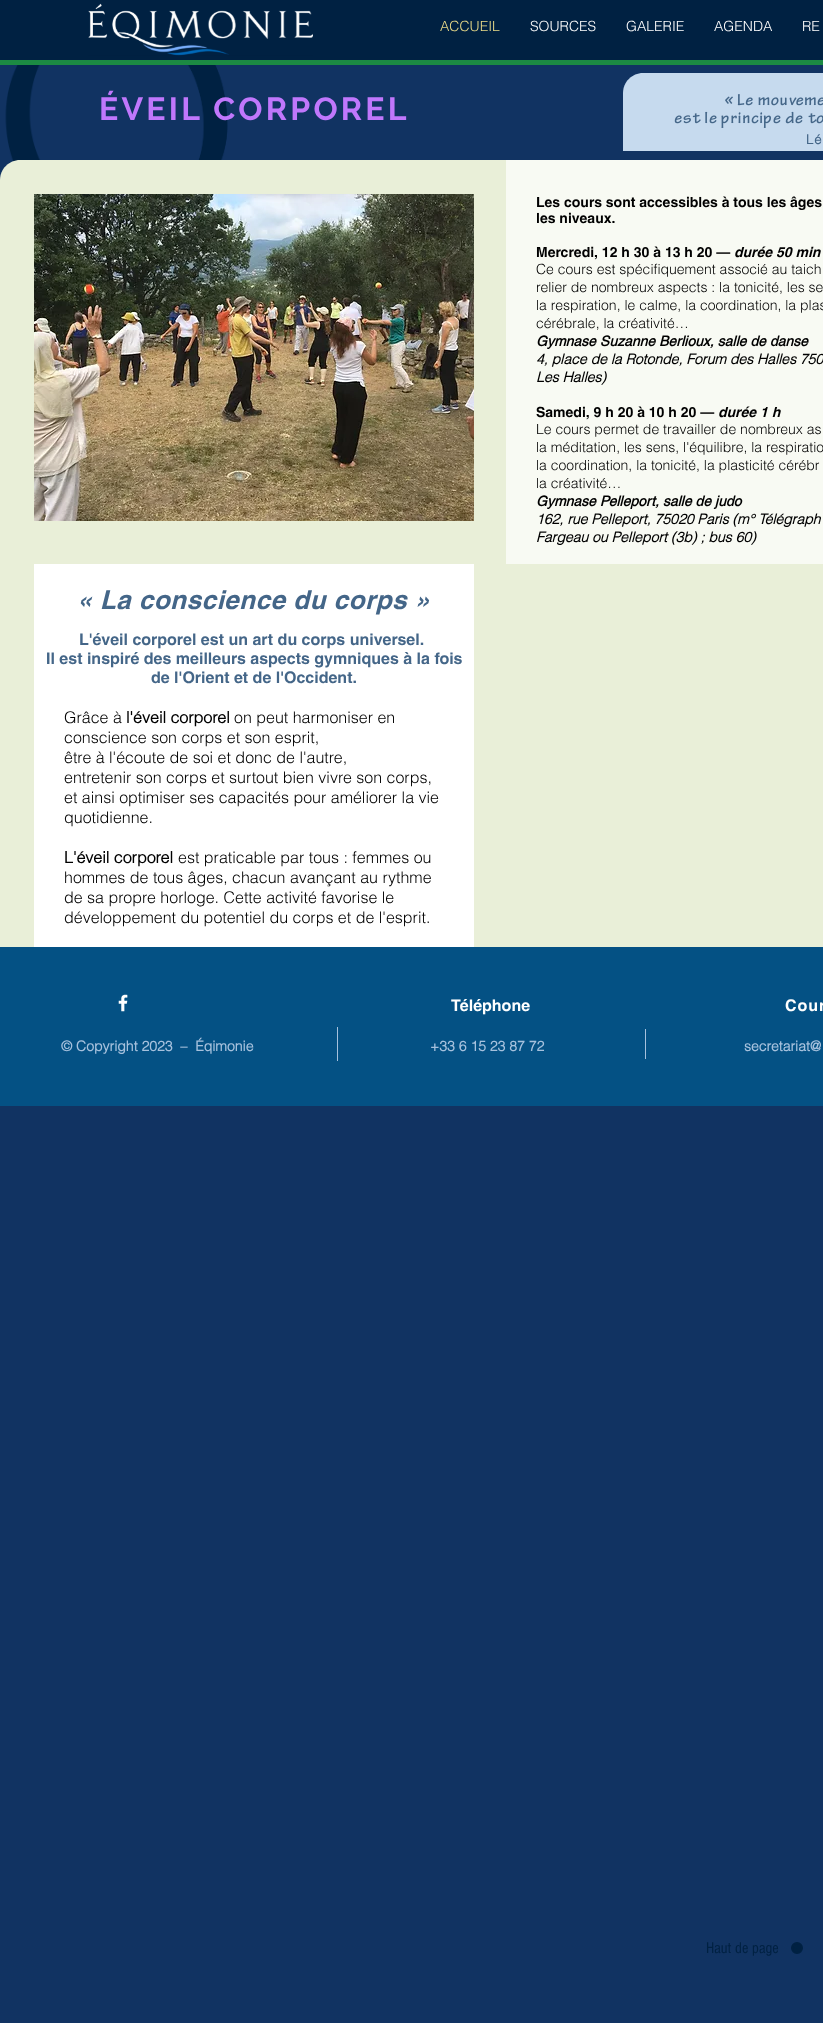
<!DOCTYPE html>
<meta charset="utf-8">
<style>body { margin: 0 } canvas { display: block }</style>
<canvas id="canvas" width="823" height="2023"></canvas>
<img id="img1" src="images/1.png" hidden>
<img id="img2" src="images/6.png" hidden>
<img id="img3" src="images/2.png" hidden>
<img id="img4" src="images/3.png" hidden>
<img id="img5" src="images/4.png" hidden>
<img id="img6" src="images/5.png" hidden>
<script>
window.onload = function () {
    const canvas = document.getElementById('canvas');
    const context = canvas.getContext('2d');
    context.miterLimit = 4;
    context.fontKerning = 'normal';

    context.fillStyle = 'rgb(17, 51, 98)';
    context.fillRect(0, 0, 823, 2023);
    context.fillStyle = 'rgb(0, 33, 66)';
    context.fillRect(0, 0, 823, 60);
    context.drawImage(document.getElementById('img1'), 88, 3, 225, 53);
    context.fillStyle = 'rgb(28, 138, 67)';
    context.fillRect(0, 60, 823, 5);
    context.drawImage(document.getElementById('img2'), 5, 65, 818, 102);
    context.fillStyle = 'rgb(198, 218, 238)';
    context.beginPath();
    context.moveTo(643, 73);
    context.lineTo(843, 73);
    context.lineTo(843, 131);
    context.bezierCurveTo(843, 142, 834, 151, 823, 151);
    context.lineTo(623, 151);
    context.lineTo(623, 93);
    context.bezierCurveTo(623, 82, 632, 73, 643, 73);
    context.closePath();
    context.fill();
    context.drawImage(document.getElementById('img3'), 725, 94, 98, 12);
    context.drawImage(document.getElementById('img4'), 674, 111, 149, 17);
    context.fillStyle = 'rgb(233, 239, 216)';
    context.beginPath();
    context.moveTo(20, 160);
    context.lineTo(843, 160);
    context.lineTo(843, 927);
    context.bezierCurveTo(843, 938, 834, 947, 823, 947);
    context.lineTo(0, 947);
    context.lineTo(0, 180);
    context.bezierCurveTo(0, 169, 9, 160, 20, 160);
    context.closePath();
    context.fill();
    context.drawImage(document.getElementById('img5'), 34, 194, 440, 327);
    context.fillStyle = 'rgb(248, 250, 243)';
    context.fillRect(506, 160, 317, 404);
    context.fillStyle = 'rgb(255, 255, 255)';
    context.fillRect(34, 564, 440, 383);
    context.fillStyle = 'rgb(4, 81, 132)';
    context.fillRect(0, 947, 823, 159);
    context.drawImage(document.getElementById('img6'), 118, 994, 10, 18);
    context.fillStyle = 'rgb(166, 193, 221)';
    context.fillRect(337, 1027, 1, 34);
    context.fillRect(645, 1029, 1, 30);
    context.fillStyle = 'rgb(0, 33, 66)';
    context.beginPath();
    context.arc(797, 1948, 5, 0, 2 * Math.PI);
    context.fill();
    context.strokeStyle = 'rgb(0, 33, 66)';
    context.lineWidth = 2;
    context.stroke();
    context.font = '300 14px helvetica';
    context.fillStyle = 'rgb(233, 219, 137)';
    context.fillText('ACCUEIL', 440, 31);
    context.fillStyle = 'rgb(255, 255, 255)';
    context.fillText('SOURCES', 530, 31);
    context.fillText('GALERIE', 626, 31);
    context.fillText('AGENDA', 714, 31);
    context.fillText('RE', 802, 31);
    context.letterSpacing = '3.25px';
    context.font = 'bold 32px Raleway';
    context.fillStyle = 'rgb(192, 119, 252)';
    context.fillText('ÉVEIL CORPOREL', 99, 120);
    context.letterSpacing = '1px';
    context.font = 'bold 13px helvetica';
    context.fillStyle = 'rgb(68, 102, 136)';
    context.fillText('Lé', 806, 144);
    context.letterSpacing = '0px';
    context.font = 'bold 14px "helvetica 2"';
    context.fillStyle = 'rgb(0, 0, 0)';
    context.fillText('Les cours sont accessibles à tous les âges', 536, 207);
    context.fillText('les niveaux.', 536, 223);
    context.fillText('Mercredi, 12 h 30 à 13 h 20 —', 536, 257);
    context.font = 'italic bold 14px helvetica';
    context.fillText('durée 50 min', 734, 257);
    context.font = '300 14px helvetica';
    context.fillText('Ce cours est spécifiquement associé au taich', 536, 274);
    context.fillText('relier de nombreux aspects : la tonicité, les se', 536, 292);
    context.fillText('la respiration, le calme, la coordination, la plas', 536, 310);
    context.fillText('cérébrale, la créativité…', 536, 328);
    context.font = 'italic bold 14px "helvetica 2"';
    context.fillText('Gymnase Suzanne Berlioux, salle de danse', 536, 346);
    context.font = 'italic bold 14px "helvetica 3"';
    context.fillText('4, place de la Rotonde, Forum des Halles 750', 536, 364);
    context.fillText('Les Halles)', 536, 382);
    context.font = 'bold 14px "helvetica 2"';
    context.fillText('Samedi, 9 h 20 à 10 h 20 —', 536, 417);
    context.font = 'italic bold 14px helvetica';
    context.fillText('durée 1 h', 718, 417);
    context.font = '300 14px helvetica';
    context.fillText('Le cours permet de travailler de nombreux as', 536, 434);
    context.fillText('la méditation, les sens, l\'équilibre, la respiratio', 536, 452);
    context.fillText('la coordination, la tonicité, la plasticité cérébr', 536, 470);
    context.fillText('la créativité…', 536, 488);
    context.font = 'italic bold 14px "helvetica 2"';
    context.fillText('Gymnase Pelleport, salle de judo', 536, 506);
    context.font = 'italic bold 14px "helvetica 3"';
    context.fillText('162, rue Pelleport, 75020 Paris (m° Télégraph', 536, 524);
    context.fillText('Fargeau ou Pelleport (3b) ; bus 60)', 536, 542);
    context.letterSpacing = '0.5px';
    context.font = 'italic bold 26px helvetica';
    context.fillStyle = 'rgb(68, 102, 136)';
    context.fillText('« La conscience du corps »', 77, 609);
    context.letterSpacing = '0px';
    context.font = 'bold 16px "helvetica 2"';
    context.fillText('L\'éveil corporel est un art du corps universel.', 79, 645);
    context.fillText('Il est inspiré des meilleurs aspects gymniques à la fois', 46, 664);
    context.fillText('de l\'Orient et de l\'Occident.', 151, 683);
    context.font = '300 16px helvetica';
    context.fillStyle = 'rgb(0, 0, 0)';
    context.fillText('Grâce à', 64, 723);
    context.font = 'bold 16px helvetica';
    context.fillText('l\'éveil corporel', 126, 723);
    context.font = '300 16px helvetica';
    context.fillText('on peut harmoniser en', 234, 723);
    context.fillText('conscience son corps et son esprit,', 64, 743);
    context.fillText('être à l\'écoute de soi et donc de l\'autre,', 64, 763);
    context.fillText('entretenir son corps et surtout bien vivre son corps,', 64, 783);
    context.fillText('et ainsi optimiser ses capacités pour améliorer la vie', 64, 803);
    context.fillText('quotidienne.', 64, 823);
    context.font = 'bold 16px helvetica';
    context.fillText('L\'éveil corporel', 64, 863);
    context.font = '300 16px helvetica';
    context.fillText('est praticable par tous : femmes ou', 178, 863);
    context.fillText('hommes de tous âges, chacun avançant au rythme', 64, 883);
    context.fillText('de sa propre horloge. Cette activité favorise le', 64, 903);
    context.fillText('développement du potentiel du corps et de l\'esprit.', 64, 923);
    context.font = 'bold 16px "helvetica 2"';
    context.fillStyle = 'rgb(255, 255, 255)';
    context.fillText('Téléphone', 451, 1011);
    context.letterSpacing = '1px';
    context.fillText('Cour', 785, 1011);
    context.letterSpacing = '0px';
    context.font = 'bold 14px helvetica';
    context.fillStyle = 'rgb(166, 193, 221)';
    context.fillText('© Copyright 2023  –  Éqimonie', 61, 1051);
    context.fillText('+33 6 15 23 87 72', 430, 1051);
    context.fillText('secretariat@', 744, 1051);
    context.font = '16px "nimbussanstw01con"';
    context.fillStyle = 'rgb(0, 33, 66)';
    context.fillText('Haut de page', 706, 1953);
};
</script>
